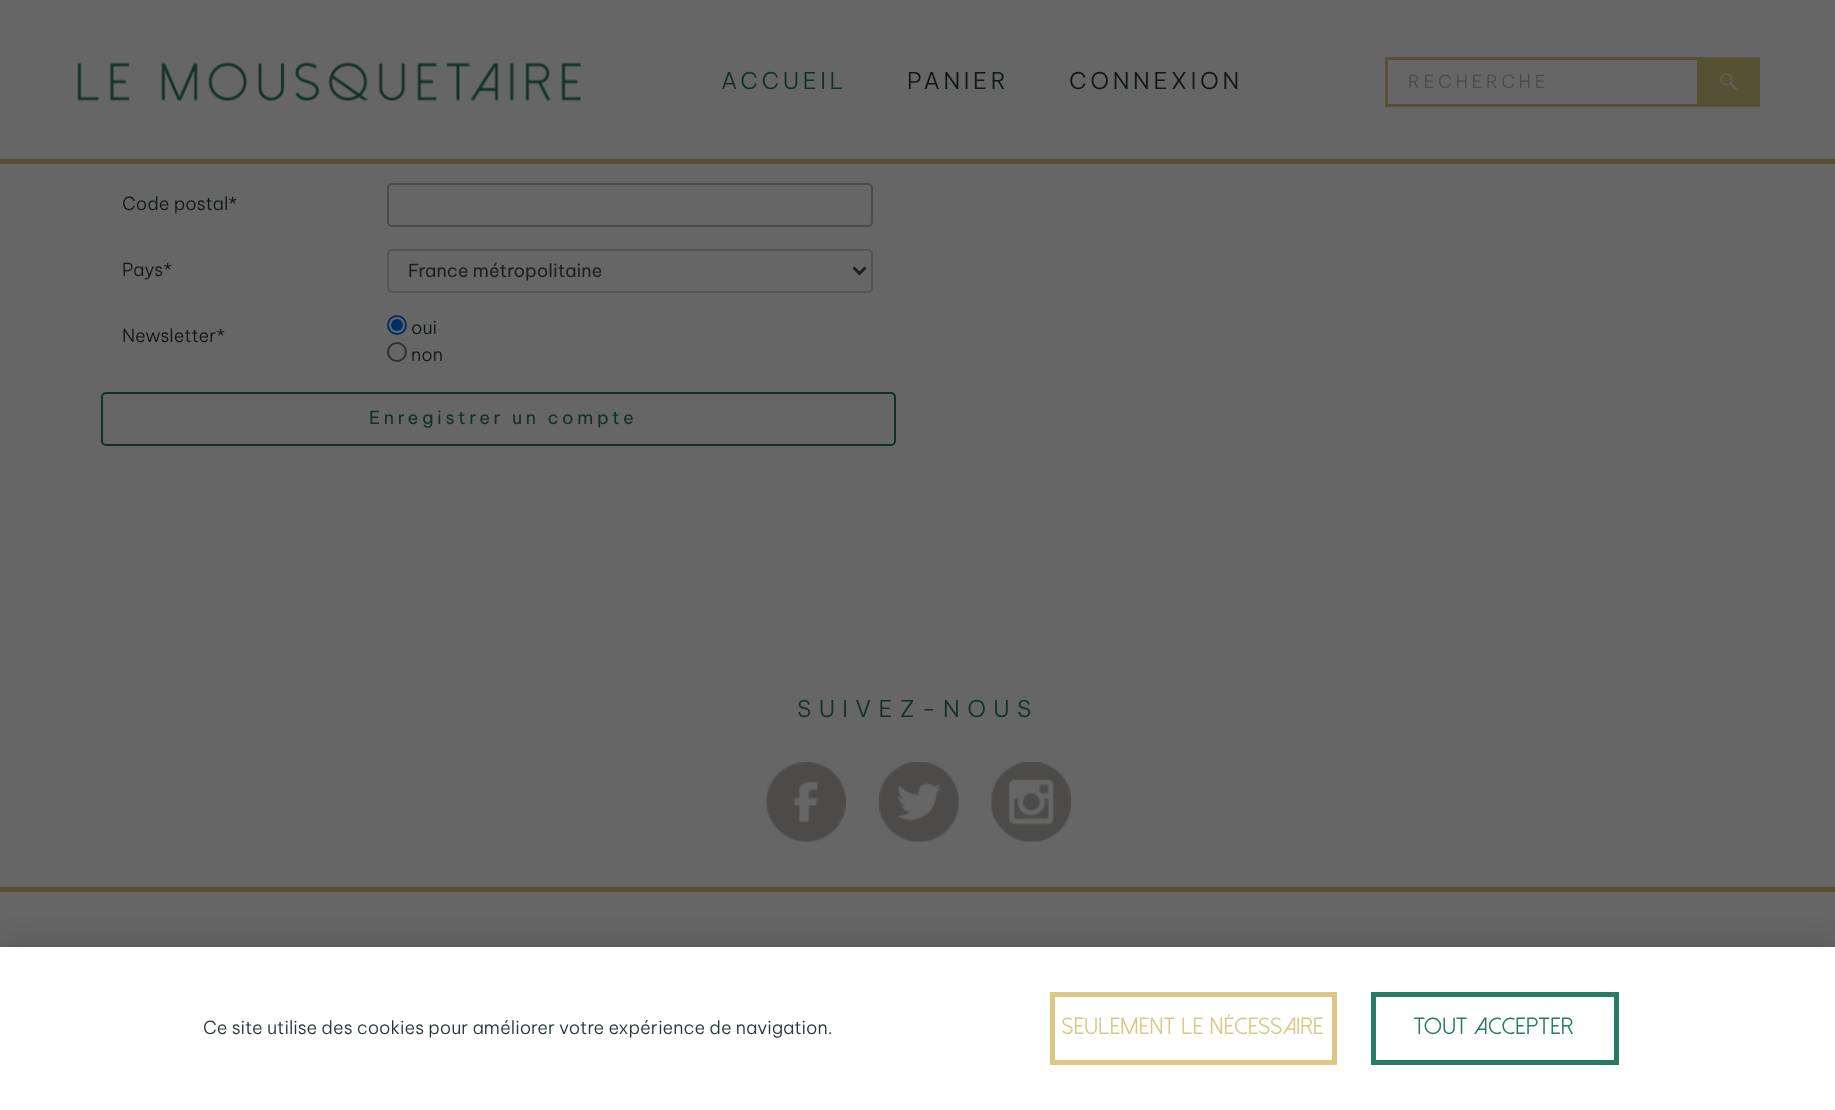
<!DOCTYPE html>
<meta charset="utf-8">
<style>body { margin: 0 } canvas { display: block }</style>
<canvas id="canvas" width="1835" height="1110"></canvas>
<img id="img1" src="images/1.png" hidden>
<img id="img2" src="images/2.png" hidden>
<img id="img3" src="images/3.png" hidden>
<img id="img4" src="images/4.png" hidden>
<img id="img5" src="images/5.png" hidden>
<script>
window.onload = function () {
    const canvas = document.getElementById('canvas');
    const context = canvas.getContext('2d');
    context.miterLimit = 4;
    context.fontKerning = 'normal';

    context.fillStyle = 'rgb(102, 102, 102)';
    context.fillRect(0, 0, 1835, 1110);
    context.fillStyle = 'rgb(88, 80, 53)';
    context.fillRect(0, 159, 1835, 5);
    context.drawImage(document.getElementById('img1'), 77, 62, 504, 40);
    context.strokeStyle = 'rgb(88, 80, 53)';
    context.lineWidth = 3;
    context.strokeRect(1386.5, 58.5, 312, 47);
    context.fillRect(1700, 57, 60, 50);
    context.drawImage(document.getElementById('img2'), 1720, 73, 18, 18);
    context.beginPath();
    context.roundRect(388, 184, 484, 42, 4);
    context.strokeStyle = 'rgb(75, 75, 75)';
    context.lineWidth = 2;
    context.stroke();
    context.beginPath();
    context.roundRect(388, 250, 484, 42, 4);
    context.strokeStyle = 'rgb(82, 85, 87)';
    context.stroke();
    context.beginPath();
    context.moveTo(853.5, 267.5);
    context.lineTo(859.5, 273.5);
    context.lineTo(865.5, 267.5);
    context.strokeStyle = 'rgb(29, 32, 35)';
    context.lineWidth = 3;
    context.stroke();
    context.beginPath();
    context.arc(397, 325, 9, 0, 2 * Math.PI);
    context.strokeStyle = 'rgb(0, 47, 102)';
    context.lineWidth = 2;
    context.stroke();
    context.fillStyle = 'rgb(0, 47, 102)';
    context.beginPath();
    context.arc(397, 325, 6, 0, 2 * Math.PI);
    context.fill();
    context.beginPath();
    context.arc(397, 352, 9, 0, 2 * Math.PI);
    context.strokeStyle = 'rgb(47, 47, 47)';
    context.stroke();
    context.beginPath();
    context.roundRect(102, 393, 793, 52, 4);
    context.strokeStyle = 'rgb(16, 49, 41)';
    context.stroke();
    context.fillStyle = 'rgb(88, 80, 53)';
    context.fillRect(0, 887, 1835, 5);
    context.drawImage(document.getElementById('img3'), 766, 762, 80, 80);
    context.drawImage(document.getElementById('img4'), 879, 762, 80, 80);
    context.drawImage(document.getElementById('img5'), 991, 762, 80, 80);
    context.fillStyle = 'rgba(0, 0, 0, 0.2)';
    context.filter = 'blur(15px)';
    context.beginPath();
    context.rect(0, 947, 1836, 163);
    context.fill();
    context.filter = 'none';
    context.fillStyle = 'rgb(255, 255, 255)';
    context.fillRect(0, 947, 1835, 163);
    context.strokeStyle = 'rgb(220, 199, 133)';
    context.lineWidth = 5;
    context.strokeRect(1052.5, 994.5, 282, 68);
    context.strokeStyle = 'rgb(39, 122, 102)';
    context.strokeRect(1373.5, 994.5, 243, 68);
    context.letterSpacing = '3.6px';
    context.font = '300 23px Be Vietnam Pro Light';
    context.fillStyle = 'rgb(16, 49, 41)';
    context.fillText('ACCUEIL', 721, 89);
    context.fillStyle = 'rgb(15, 22, 24)';
    context.fillText('PANIER', 907, 89);
    context.fillText('CONNEXION', 1069, 89);
    context.font = '300 18px Be Vietnam Pro Light';
    context.fillStyle = 'rgb(76, 75, 74)';
    context.fillText('RECHERCHE', 1408, 88);
    context.letterSpacing = '0px';
    context.fillStyle = 'rgb(15, 22, 24)';
    context.fillText('Code postal*', 122, 210);
    context.fillText('Pays*', 122, 276);
    context.font = '18px Be Vietnam Pro';
    context.fillStyle = 'rgb(29, 32, 35)';
    context.fillText('France métropolitaine', 408, 277);
    context.font = '300 18px Be Vietnam Pro Light';
    context.fillStyle = 'rgb(15, 22, 24)';
    context.fillText('Newsletter*', 122, 342);
    context.fillText('oui', 411, 334);
    context.fillText('non', 411, 361);
    context.letterSpacing = '3.6px';
    context.font = '18px Be Vietnam Pro';
    context.fillStyle = 'rgb(16, 49, 41)';
    context.fillText('Enregistrer un compte', 369, 424);
    context.letterSpacing = '7.25px';
    context.font = '300 23px Be Vietnam Pro Light';
    context.fillText('SUIVEZ-NOUS', 797, 717);
    context.letterSpacing = '0px';
    context.font = '300 18px Be Vietnam Pro Light';
    context.fillStyle = 'rgb(37, 54, 61)';
    context.fillText('Ce site utilise des cookies pour améliorer votre expérience de navigation.', 203, 1034);
    context.letterSpacing = '0.9px';
    context.font = '23.4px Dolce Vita';
    context.fillStyle = 'rgb(220, 199, 133)';
    context.fillText('SEULEMENT LE NÉCESSAIRE', 1062, 1034);
    context.fillStyle = 'rgb(39, 122, 102)';
    context.fillText('TOUT ACCEPTER', 1414, 1034);
};
</script>
